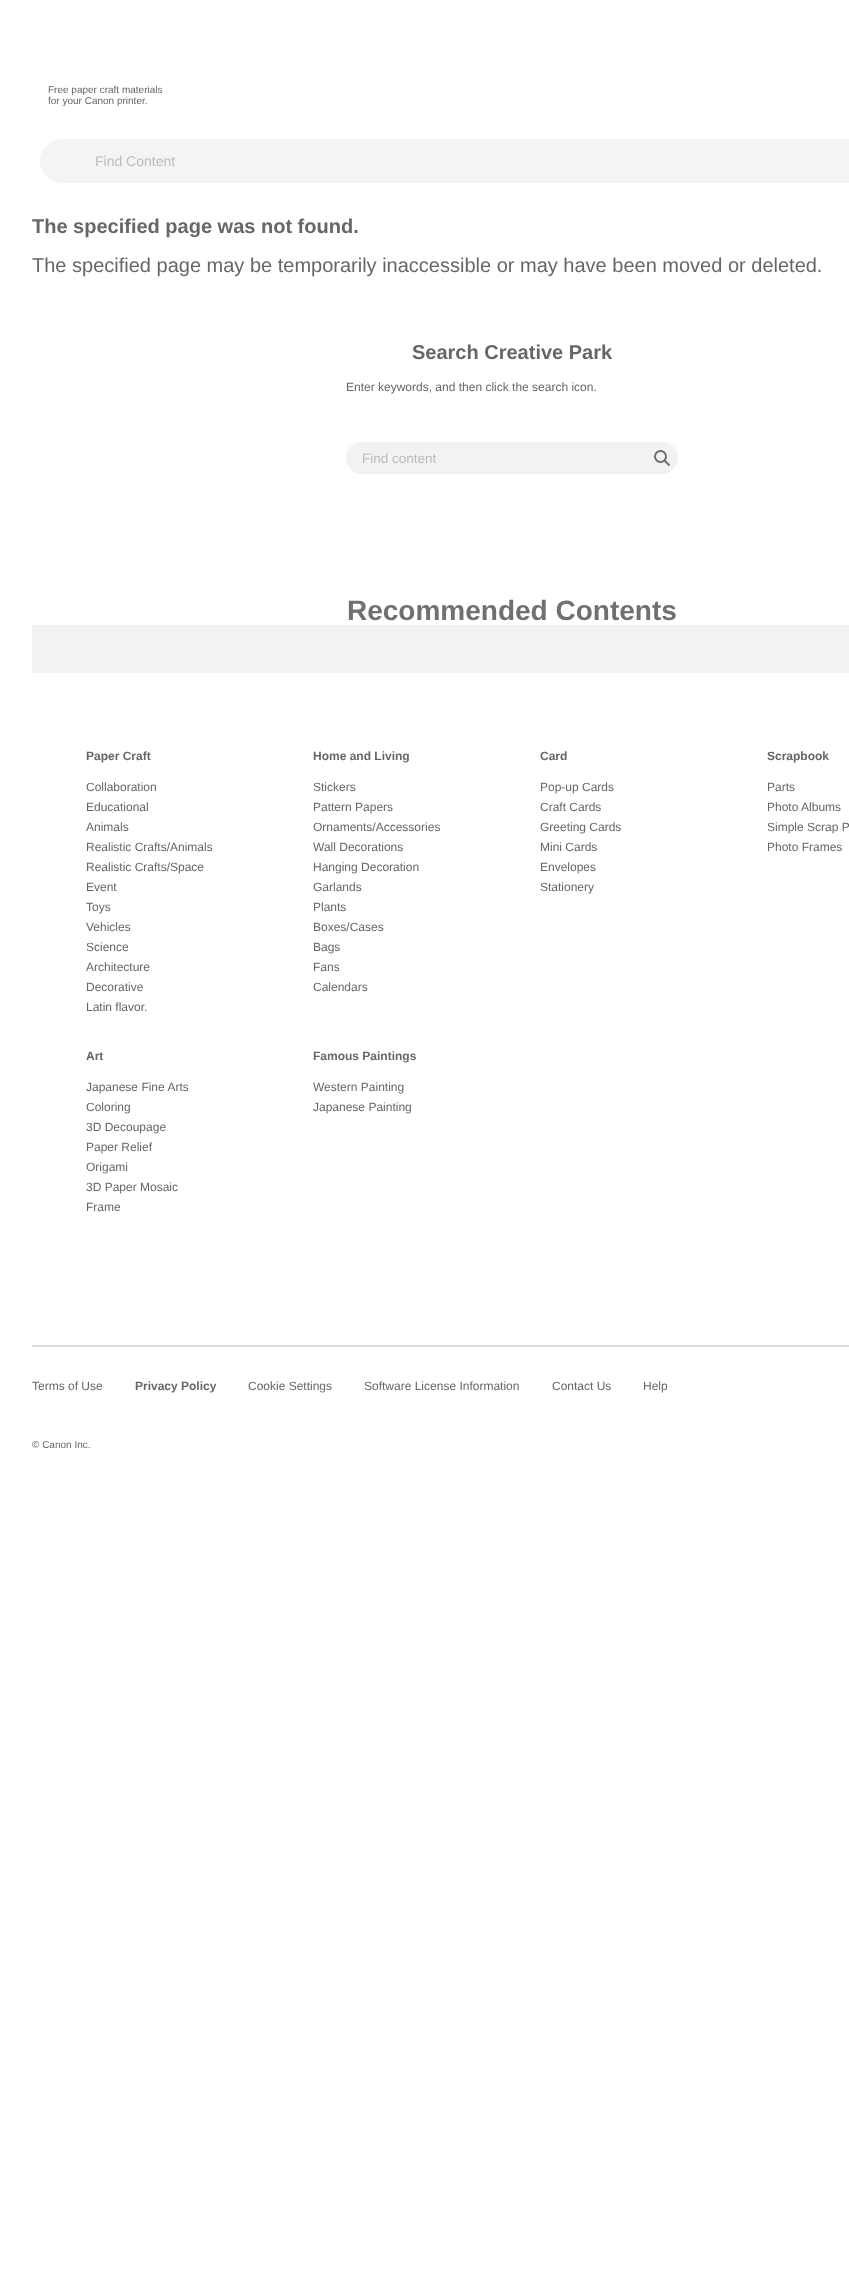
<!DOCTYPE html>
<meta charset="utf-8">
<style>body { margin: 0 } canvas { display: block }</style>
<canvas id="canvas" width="849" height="2284"></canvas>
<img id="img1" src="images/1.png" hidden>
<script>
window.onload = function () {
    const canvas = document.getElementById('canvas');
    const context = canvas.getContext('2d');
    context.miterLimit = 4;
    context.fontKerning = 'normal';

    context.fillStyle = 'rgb(255, 255, 255)';
    context.fillRect(0, 0, 849, 2284);
    context.fillStyle = 'rgb(244, 244, 244)';
    context.beginPath();
    context.roundRect(40.5, 139.5, 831, 43, 21.5);
    context.fill();
    context.strokeStyle = 'rgb(244, 244, 244)';
    context.stroke();
    context.fillStyle = 'rgb(242, 242, 242)';
    context.beginPath();
    context.roundRect(346, 442, 332, 32, 16);
    context.fill();
    context.drawImage(document.getElementById('img1'), 654, 450, 17, 17);
    context.fillRect(32, 625, 817, 48);
    context.fillStyle = 'rgb(219, 219, 219)';
    context.fillRect(32, 1345, 817, 2);
    context.font = '10px Liberation Sans';
    context.fillStyle = 'rgb(102, 102, 102)';
    context.fillText('Free paper craft materials', 48, 93);
    context.fillText('for your Canon printer.', 48, 104);
    context.font = '14px Liberation Sans';
    context.fillStyle = 'rgb(187, 187, 187)';
    context.fillText('Find Content', 95, 166);
    context.font = 'bold 20px Liberation Sans';
    context.fillStyle = 'rgb(102, 102, 102)';
    context.fillText('The specified page was not found.', 32, 233);
    context.font = '20px Liberation Sans';
    context.fillText('The specified page may be temporarily inaccessible or may have been moved or deleted.', 32, 272);
    context.font = 'bold 20px Liberation Sans';
    context.fillText('Search Creative Park', 412, 359);
    context.font = '12px Liberation Sans';
    context.fillText('Enter keywords, and then click the search icon.', 346, 391);
    context.font = '13.5px Liberation Sans';
    context.fillStyle = 'rgb(187, 187, 187)';
    context.fillText('Find content', 362, 463);
    context.font = 'bold 28px Liberation Sans';
    context.fillStyle = 'rgb(112, 112, 112)';
    context.fillText('Recommended Contents', 347, 620);
    context.font = 'bold 12px Liberation Sans';
    context.fillStyle = 'rgb(102, 102, 102)';
    context.fillText('Paper Craft', 86, 760);
    context.font = '12px Liberation Sans';
    context.fillText('Collaboration', 86, 791);
    context.fillText('Educational', 86, 811);
    context.fillText('Animals', 86, 831);
    context.fillText('Realistic Crafts/Animals', 86, 851);
    context.fillText('Realistic Crafts/Space', 86, 871);
    context.fillText('Event', 86, 891);
    context.fillText('Toys', 86, 911);
    context.fillText('Vehicles', 86, 931);
    context.fillText('Science', 86, 951);
    context.fillText('Architecture', 86, 971);
    context.fillText('Decorative', 86, 991);
    context.fillText('Latin flavor.', 86, 1011);
    context.font = 'bold 12px Liberation Sans';
    context.fillText('Home and Living', 313, 760);
    context.font = '12px Liberation Sans';
    context.fillText('Stickers', 313, 791);
    context.fillText('Pattern Papers', 313, 811);
    context.fillText('Ornaments/Accessories', 313, 831);
    context.fillText('Wall Decorations', 313, 851);
    context.fillText('Hanging Decoration', 313, 871);
    context.fillText('Garlands', 313, 891);
    context.fillText('Plants', 313, 911);
    context.fillText('Boxes/Cases', 313, 931);
    context.fillText('Bags', 313, 951);
    context.fillText('Fans', 313, 971);
    context.fillText('Calendars', 313, 991);
    context.font = 'bold 12px Liberation Sans';
    context.fillText('Card', 540, 760);
    context.font = '12px Liberation Sans';
    context.fillText('Pop-up Cards', 540, 791);
    context.fillText('Craft Cards', 540, 811);
    context.fillText('Greeting Cards', 540, 831);
    context.fillText('Mini Cards', 540, 851);
    context.fillText('Envelopes', 540, 871);
    context.fillText('Stationery', 540, 891);
    context.font = 'bold 12px Liberation Sans';
    context.fillText('Scrapbook', 767, 760);
    context.font = '12px Liberation Sans';
    context.fillText('Parts', 767, 791);
    context.fillText('Photo Albums', 767, 811);
    context.fillText('Simple Scrap P', 767, 831);
    context.fillText('Photo Frames', 767, 851);
    context.font = 'bold 12px Liberation Sans';
    context.fillText('Art', 86, 1060);
    context.font = '12px Liberation Sans';
    context.fillText('Japanese Fine Arts', 86, 1091);
    context.fillText('Coloring', 86, 1111);
    context.fillText('3D Decoupage', 86, 1131);
    context.fillText('Paper Relief', 86, 1151);
    context.fillText('Origami', 86, 1171);
    context.fillText('3D Paper Mosaic', 86, 1191);
    context.fillText('Frame', 86, 1211);
    context.font = 'bold 12px Liberation Sans';
    context.fillText('Famous Paintings', 313, 1060);
    context.font = '12px Liberation Sans';
    context.fillText('Western Painting', 313, 1091);
    context.fillText('Japanese Painting', 313, 1111);
    context.fillText('Terms of Use', 32, 1390);
    context.font = 'bold 12px Liberation Sans';
    context.fillText('Privacy Policy', 135, 1390);
    context.font = '12px Liberation Sans';
    context.fillText('Cookie Settings', 248, 1390);
    context.fillText('Software License Information', 364, 1390);
    context.fillText('Contact Us', 552, 1390);
    context.fillText('Help', 643, 1390);
    context.font = '10px Liberation Sans';
    context.fillText('© Canon Inc.', 32, 1448);
};
</script>
